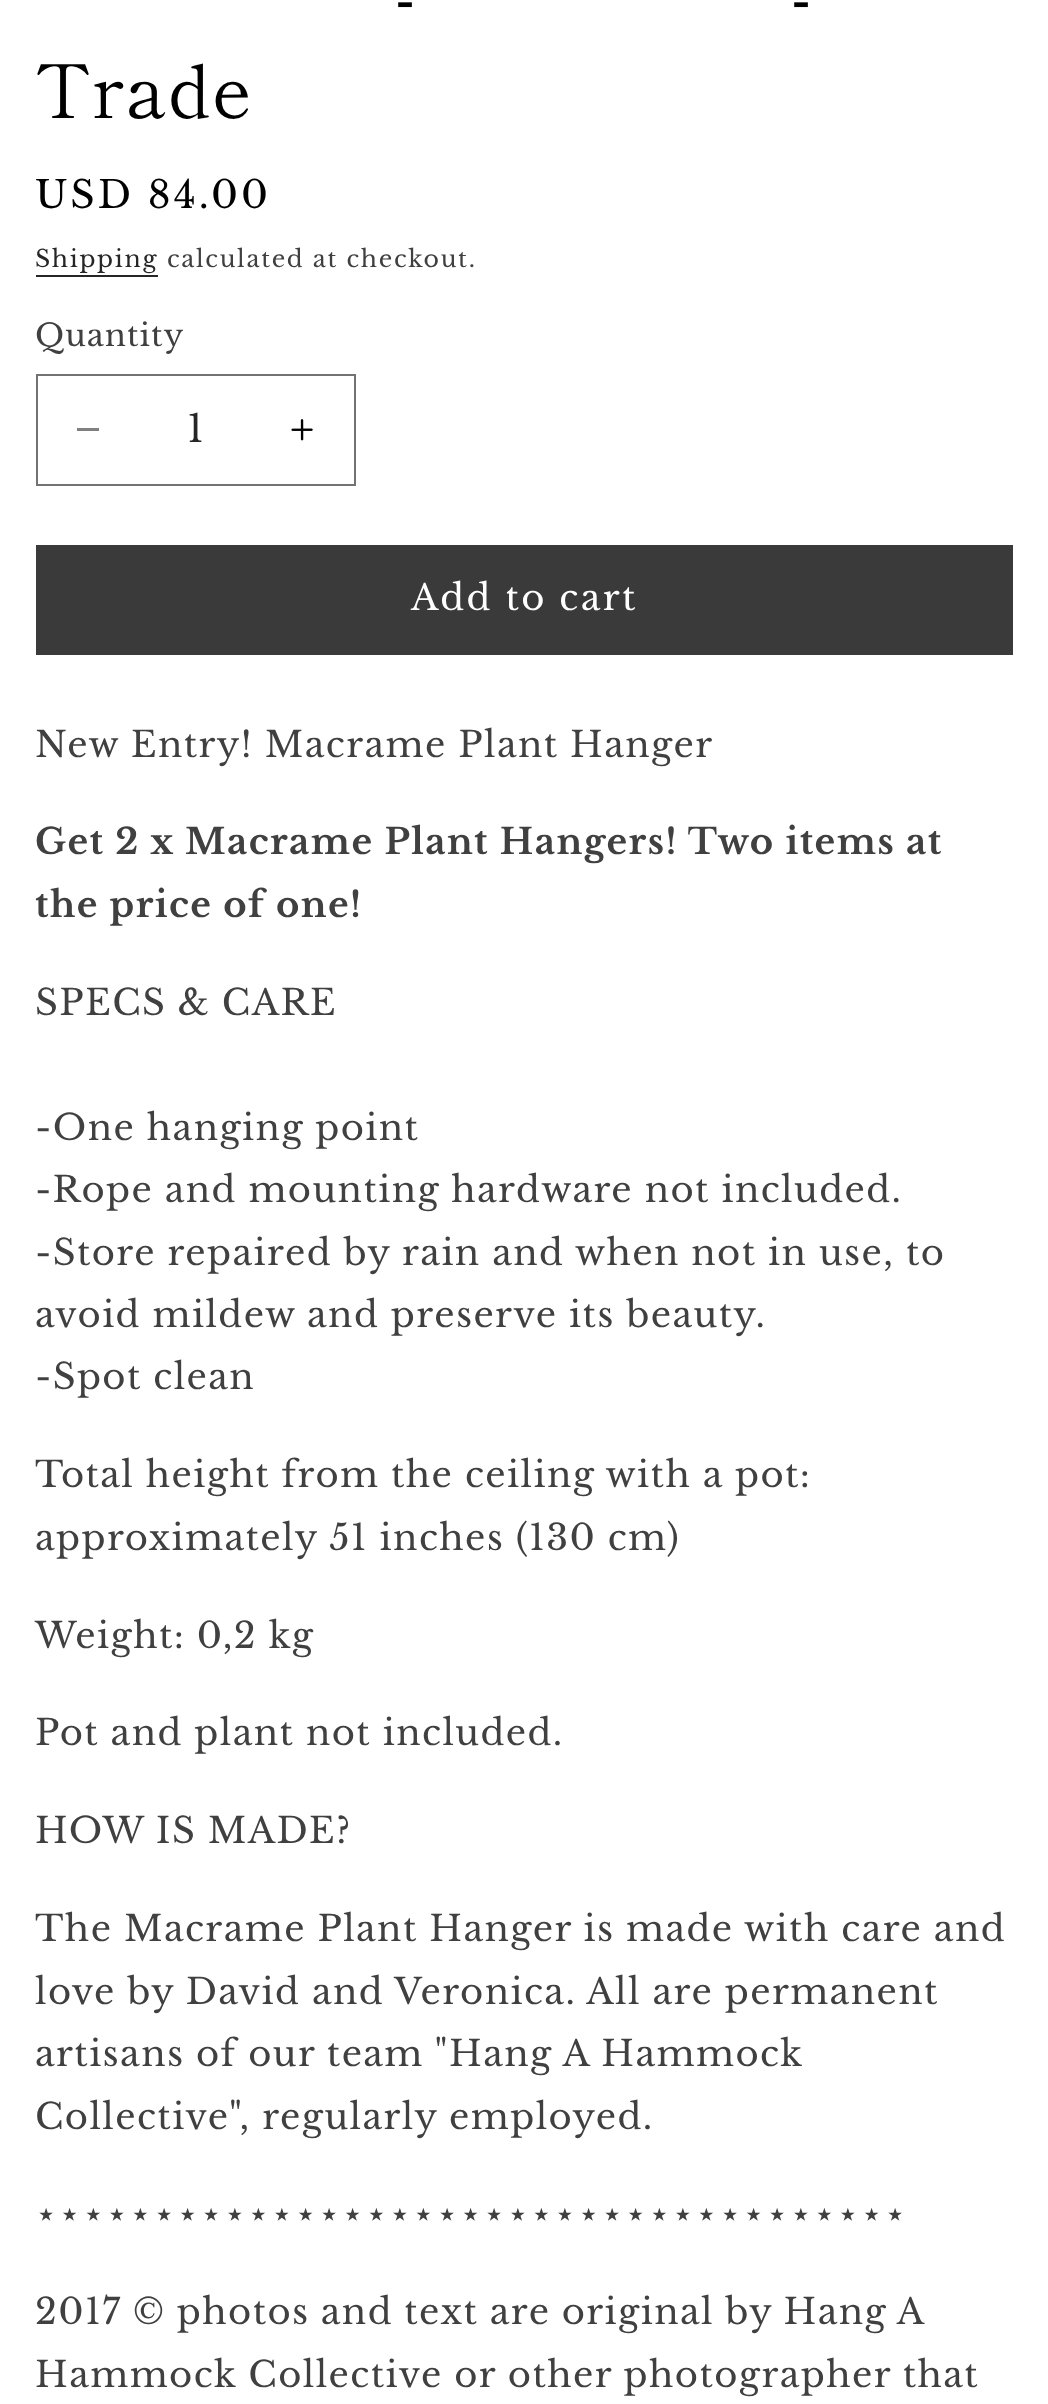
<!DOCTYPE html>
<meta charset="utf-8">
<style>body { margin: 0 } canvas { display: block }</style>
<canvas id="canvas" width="1048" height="2404"></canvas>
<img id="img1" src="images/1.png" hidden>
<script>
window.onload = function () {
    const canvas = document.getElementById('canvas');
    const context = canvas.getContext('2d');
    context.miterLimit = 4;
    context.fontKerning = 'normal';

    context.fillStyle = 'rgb(255, 255, 255)';
    context.fillRect(0, 0, 1048, 2404);
    context.fillStyle = 'rgb(38, 38, 38)';
    context.fillRect(36, 275, 122, 2);
    context.fillStyle = 'rgb(128, 128, 128)';
    context.fillRect(77, 428, 22, 3);
    context.drawImage(document.getElementById('img1'), 291, 419, 22, 22);
    context.strokeStyle = 'rgb(115, 115, 115)';
    context.lineWidth = 2;
    context.strokeRect(37, 375, 318, 110);
    context.fillStyle = 'rgb(59, 58, 58)';
    context.fillRect(36, 545, 977, 110);
    context.letterSpacing = '1.5px';
    context.font = '74px Shippori Mincho';
    context.fillStyle = 'rgb(0, 0, 0)';
    context.fillText('-', 395, 22);
    context.fillText('-', 791, 22);
    context.fillText('Trade', 35, 118);
    context.letterSpacing = '3px';
    context.font = '37.75px Libre Baskerville';
    context.fillText('USD 84.00', 35, 208);
    context.letterSpacing = '1.65px';
    context.font = '23.6px Libre Baskerville';
    context.fillStyle = 'rgb(38, 38, 38)';
    context.fillText('Shipping', 35, 267);
    context.fillStyle = 'rgb(64, 64, 64)';
    context.fillText('calculated at checkout.', 167, 267);
    context.letterSpacing = '1px';
    context.font = '30.75px Libre Baskerville';
    context.fillText('Quantity', 35, 346);
    context.letterSpacing = '0px';
    context.font = '37.75px Libre Baskerville';
    context.fillStyle = 'rgb(38, 38, 38)';
    context.fillText('1', 187, 442);
    context.letterSpacing = '2.4px';
    context.font = '35.45px Libre Baskerville';
    context.fillStyle = 'rgb(255, 255, 255)';
    context.fillText('Add to cart', 411, 610);
    context.letterSpacing = '1.4px';
    context.fillStyle = 'rgb(64, 64, 64)';
    context.fillText('New Entry! Macrame Plant Hanger', 35, 757);
    context.font = 'bold 35.45px Libre Baskerville';
    context.fillText('Get 2 x Macrame Plant Hangers! Two items at', 35, 854);
    context.fillText('the price of one!', 35, 917);
    context.font = '35.45px Libre Baskerville';
    context.fillText('SPECS & CARE', 35, 1015);
    context.fillText('-One hanging point', 35, 1140);
    context.fillText('-Rope and mounting hardware not included.', 35, 1202);
    context.fillText('-Store repaired by rain and when not in use, to', 35, 1265);
    context.fillText('avoid mildew and preserve its beauty.', 35, 1327);
    context.fillText('-Spot clean', 35, 1389);
    context.fillText('Total height from the ceiling with a pot:', 35, 1487);
    context.fillText('approximately 51 inches (130 cm)', 35, 1550);
    context.fillText('Weight: 0,2 kg', 35, 1648);
    context.fillText('Pot and plant not included.', 35, 1745);
    context.fillText('HOW IS MADE?', 35, 1843);
    context.fillText('The Macrame Plant Hanger is made with care and', 35, 1941);
    context.fillText('love by David and Veronica. All are permanent', 35, 2004);
    context.fillText('artisans of our team "Hang A Hammock', 35, 2066);
    context.fillText('Collective", regularly employed.', 35, 2129);
    context.font = '35.45px DejaVu Sans';
    context.fillText('⋆⋆⋆⋆⋆⋆⋆⋆⋆⋆⋆⋆⋆⋆⋆⋆⋆⋆⋆⋆⋆⋆⋆⋆⋆⋆⋆⋆⋆⋆⋆⋆⋆⋆⋆⋆⋆', 35, 2226);
    context.wordSpacing = '-0.25px';
    context.font = '35.45px Libre Baskerville';
    context.fillText('2017 © photos and text are original by Hang A', 35, 2324);
    context.wordSpacing = '0px';
    context.fillText('Hammock Collective or other photographer that', 35, 2387);
};
</script>
